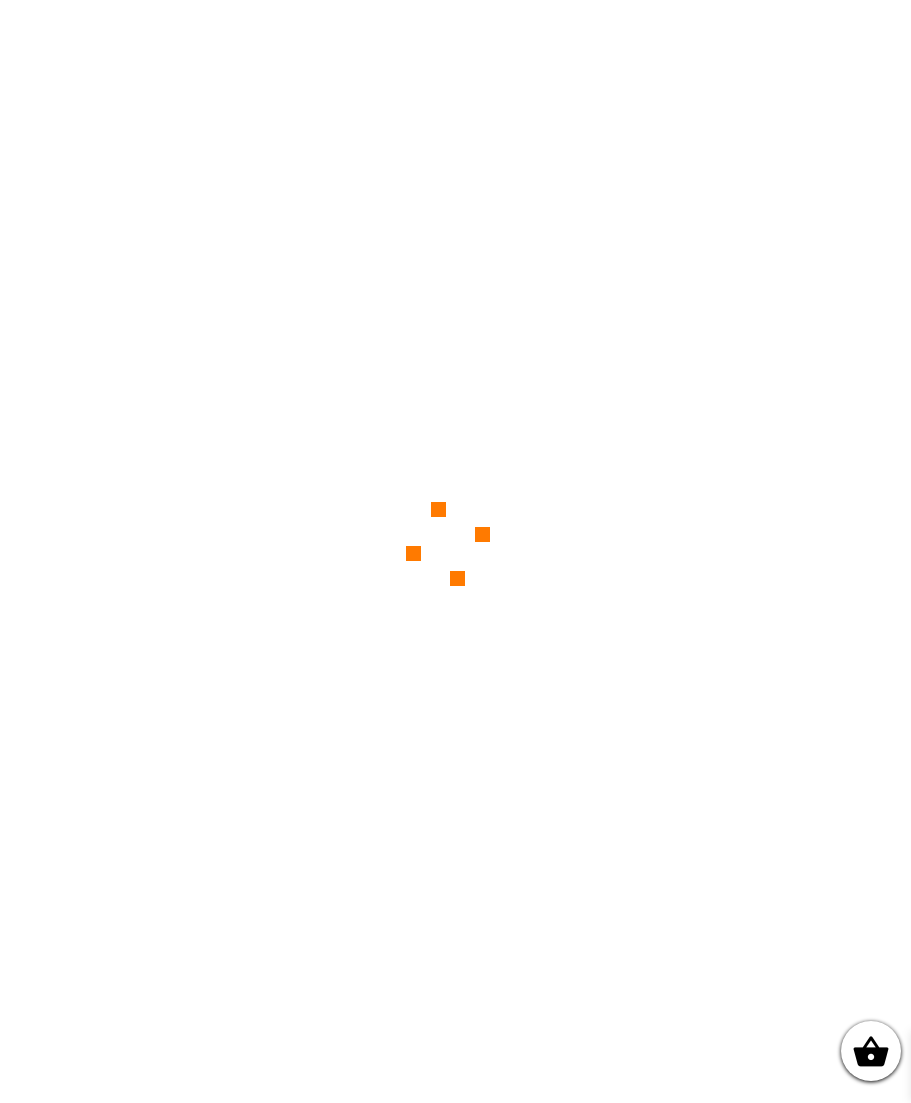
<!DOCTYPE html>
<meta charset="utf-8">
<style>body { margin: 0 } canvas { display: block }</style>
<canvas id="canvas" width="911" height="1103"></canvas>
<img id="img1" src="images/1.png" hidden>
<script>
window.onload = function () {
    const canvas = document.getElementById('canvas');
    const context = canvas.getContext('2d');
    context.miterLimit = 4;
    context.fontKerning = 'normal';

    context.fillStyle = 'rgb(255, 255, 255)';
    context.fillRect(0, 0, 911, 1103);
    context.fillStyle = 'rgb(255, 122, 0)';
    context.fillRect(431, 502, 15, 15);
    context.fillRect(475, 527, 15, 15);
    context.fillRect(406, 546, 15, 15);
    context.fillRect(450, 571, 15, 15);
    context.fillStyle = 'rgb(0, 0, 0)';
    context.filter = 'blur(2px)';
    context.beginPath();
    context.roundRect(841, 1022, 60, 60, 30);
    context.fill();
    context.filter = 'none';
    context.fillStyle = 'rgba(0, 0, 0, 0.1)';
    context.filter = 'blur(5px)';
    context.beginPath();
    context.rect(911, 1031, 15, 71);
    context.fill();
    context.filter = 'none';
    context.fillStyle = 'rgb(255, 255, 255)';
    context.beginPath();
    context.arc(871, 1051, 30, 0, 2 * Math.PI);
    context.fill();
    context.drawImage(document.getElementById('img1'), 853, 1036, 36, 31);
};
</script>
